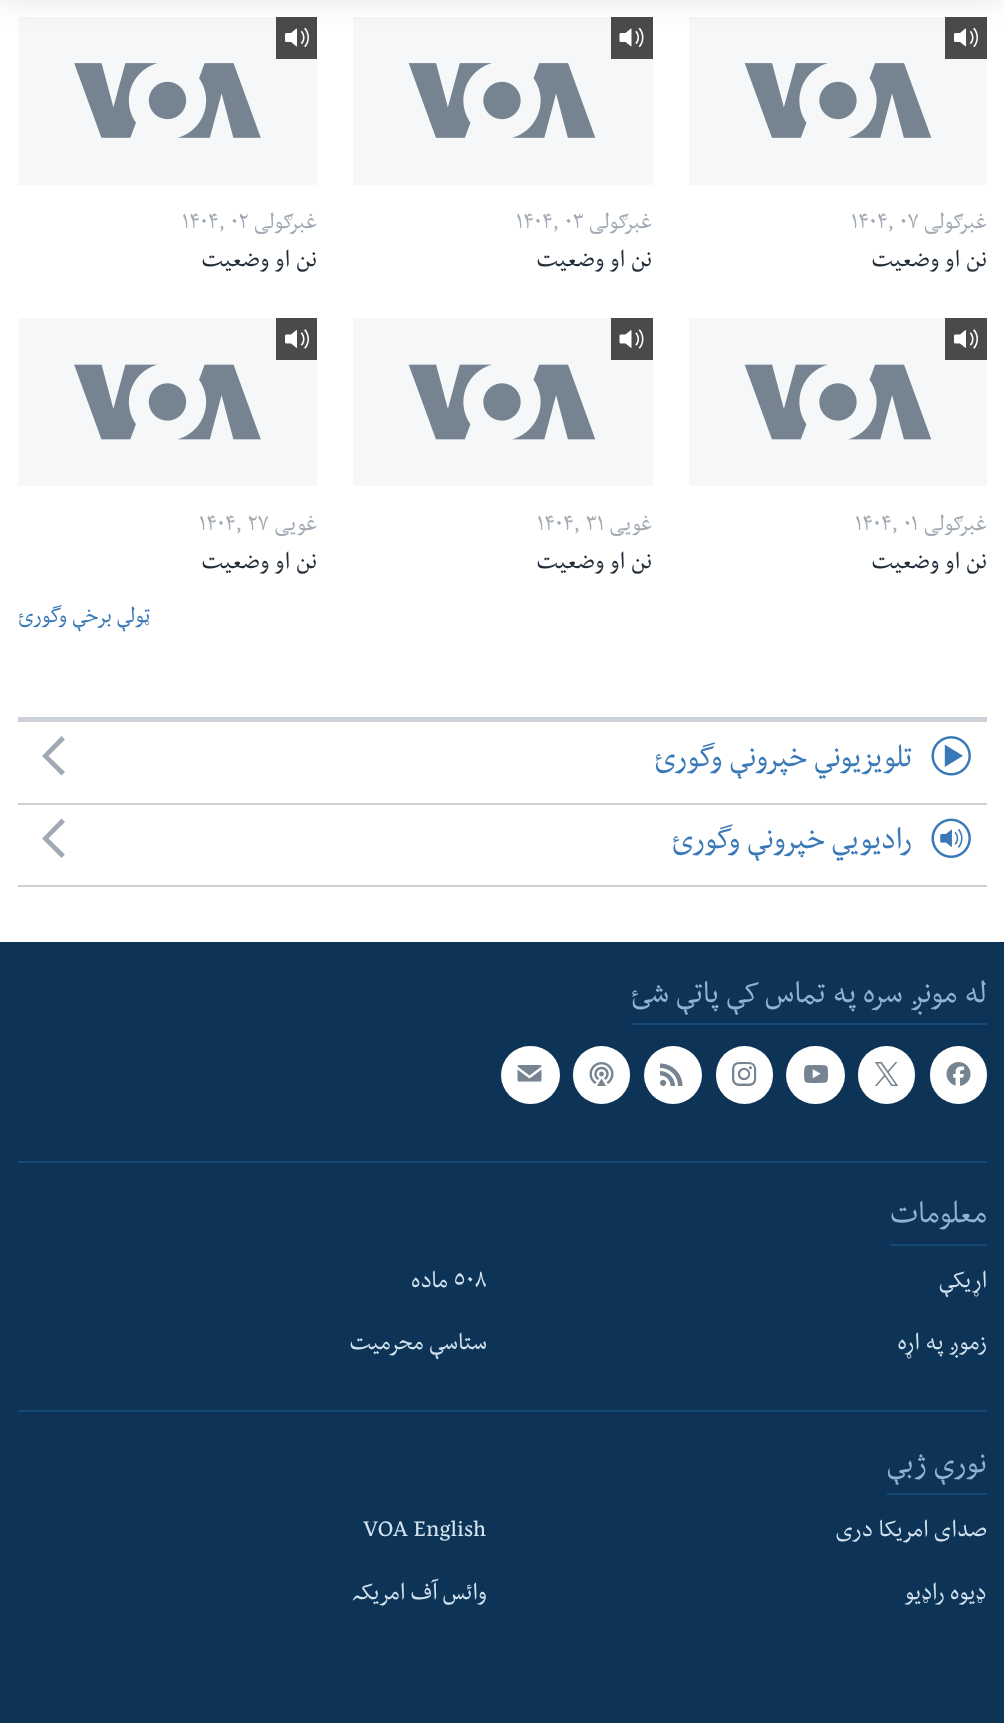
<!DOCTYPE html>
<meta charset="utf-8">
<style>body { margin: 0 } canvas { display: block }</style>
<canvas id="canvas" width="1004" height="1723"></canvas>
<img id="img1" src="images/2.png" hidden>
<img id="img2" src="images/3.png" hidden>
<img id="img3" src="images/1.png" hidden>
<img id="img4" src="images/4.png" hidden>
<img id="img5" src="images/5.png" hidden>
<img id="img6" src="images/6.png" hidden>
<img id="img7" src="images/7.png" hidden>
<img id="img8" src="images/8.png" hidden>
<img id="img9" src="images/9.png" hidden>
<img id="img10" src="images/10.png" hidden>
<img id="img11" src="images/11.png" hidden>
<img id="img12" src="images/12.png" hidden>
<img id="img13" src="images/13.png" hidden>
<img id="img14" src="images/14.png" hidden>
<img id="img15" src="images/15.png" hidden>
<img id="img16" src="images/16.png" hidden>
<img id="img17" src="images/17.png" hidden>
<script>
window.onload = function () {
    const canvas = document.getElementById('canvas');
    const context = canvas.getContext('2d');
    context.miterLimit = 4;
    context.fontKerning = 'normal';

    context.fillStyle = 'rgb(255, 255, 255)';
    context.fillRect(0, 0, 1004, 1723);
    context.fillStyle = 'rgb(246, 247, 248)';
    context.fillRect(689, 17, 298, 168);
    context.fillStyle = 'rgb(74, 74, 74)';
    context.fillRect(945, 17, 42, 42);
    context.drawImage(document.getElementById('img1'), 954, 27, 24, 21);
    context.fillStyle = 'rgb(246, 247, 248)';
    context.fillRect(353, 17, 300, 168);
    context.fillStyle = 'rgb(74, 74, 74)';
    context.fillRect(611, 17, 42, 42);
    context.drawImage(document.getElementById('img2'), 619, 27, 25, 21);
    context.fillStyle = 'rgb(246, 247, 248)';
    context.fillRect(18, 17, 299, 168);
    context.fillStyle = 'rgb(74, 74, 74)';
    context.fillRect(276, 17, 41, 42);
    context.drawImage(document.getElementById('img1'), 285, 27, 24, 21);
    context.fillStyle = 'rgba(0, 0, 0, 0.1)';
    context.filter = 'blur(15px)';
    context.beginPath();
    context.rect(0, -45, 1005, 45);
    context.fill();
    context.filter = 'none';
    context.drawImage(document.getElementById('img3'), 744, 63, 188, 75);
    context.drawImage(document.getElementById('img3'), 408, 63, 188, 75);
    context.drawImage(document.getElementById('img4'), 74, 63, 187, 75);
    context.fillStyle = 'rgb(246, 247, 248)';
    context.fillRect(689, 318, 298, 168);
    context.drawImage(document.getElementById('img5'), 744, 364, 188, 76);
    context.fillStyle = 'rgb(74, 74, 74)';
    context.fillRect(945, 318, 42, 42);
    context.drawImage(document.getElementById('img6'), 954, 329, 24, 20);
    context.fillStyle = 'rgb(246, 247, 248)';
    context.fillRect(353, 318, 300, 168);
    context.drawImage(document.getElementById('img5'), 408, 364, 188, 76);
    context.fillStyle = 'rgb(74, 74, 74)';
    context.fillRect(611, 318, 42, 42);
    context.drawImage(document.getElementById('img7'), 619, 329, 25, 20);
    context.fillStyle = 'rgb(246, 247, 248)';
    context.fillRect(18, 318, 299, 168);
    context.drawImage(document.getElementById('img8'), 74, 364, 187, 76);
    context.fillStyle = 'rgb(74, 74, 74)';
    context.fillRect(276, 318, 41, 42);
    context.drawImage(document.getElementById('img6'), 285, 329, 24, 20);
    context.fillStyle = 'rgb(203, 209, 214)';
    context.fillRect(18, 717, 969, 5);
    context.fillRect(18, 803, 969, 2);
    context.drawImage(document.getElementById('img9'), 931, 736, 40, 40);
    context.fillStyle = 'rgb(161, 170, 180)';
    context.beginPath();
    context.moveTo(61.5, 736);
    context.lineTo(42, 756);
    context.lineTo(61.5, 775.5);
    context.lineTo(65, 772);
    context.lineTo(48.5, 756);
    context.lineTo(65, 739.5);
    context.closePath();
    context.fill();
    context.fillStyle = 'rgb(203, 209, 214)';
    context.fillRect(18, 885, 969, 2);
    context.drawImage(document.getElementById('img10'), 931, 818, 40, 40);
    context.fillStyle = 'rgb(161, 170, 180)';
    context.beginPath();
    context.moveTo(61.5, 818.5);
    context.lineTo(42, 838.5);
    context.lineTo(61.5, 858);
    context.lineTo(65, 854.5);
    context.lineTo(48.5, 838.5);
    context.lineTo(65, 822);
    context.closePath();
    context.fill();
    context.fillStyle = 'rgb(13, 52, 86)';
    context.fillRect(0, 942, 1004, 781);
    context.fillStyle = 'rgb(19, 73, 118)';
    context.fillRect(632, 1023, 355, 2);
    context.fillStyle = 'rgb(255, 255, 255)';
    context.beginPath();
    context.roundRect(930, 1046, 57, 58, 28.5);
    context.fill();
    context.drawImage(document.getElementById('img11'), 946, 1062, 25, 24);
    context.beginPath();
    context.roundRect(858, 1046, 57, 58, 28.5);
    context.fill();
    context.drawImage(document.getElementById('img12'), 874, 1062, 25, 24);
    context.beginPath();
    context.roundRect(786, 1046, 59, 58, 29);
    context.fill();
    context.drawImage(document.getElementById('img13'), 804, 1065, 24, 18);
    context.beginPath();
    context.roundRect(716, 1046, 57, 58, 28.5);
    context.fill();
    context.drawImage(document.getElementById('img14'), 732, 1062, 25, 24);
    context.beginPath();
    context.arc(673, 1075, 29, 0, 2 * Math.PI);
    context.fill();
    context.drawImage(document.getElementById('img15'), 660, 1063, 23, 23);
    context.beginPath();
    context.roundRect(573, 1046, 57, 58, 28.5);
    context.fill();
    context.drawImage(document.getElementById('img16'), 589, 1062, 25, 24);
    context.beginPath();
    context.roundRect(501, 1046, 59, 58, 29);
    context.fill();
    context.drawImage(document.getElementById('img17'), 517, 1065, 25, 17);
    context.fillStyle = 'rgb(19, 73, 118)';
    context.fillRect(18, 1161, 969, 2);
    context.fillRect(890, 1244, 97, 2);
    context.fillRect(18, 1410, 969, 2);
    context.fillRect(887, 1493, 100, 2);
    context.direction = 'rtl';
    context.font = '25.5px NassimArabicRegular';
    context.fillStyle = 'rgb(161, 170, 180)';
    context.fillText('غبرګولی', 987, 228);
    context.direction = 'ltr';
    context.fillText('۱۴۰۴, ۰۷', 851, 228);
    context.direction = 'rtl';
    context.font = '27.5px NassimArabicRegular';
    context.fillStyle = 'rgb(34, 47, 58)';
    context.fillText('نن او وضعیت', 987, 266);
    context.font = '25.5px NassimArabicRegular';
    context.fillStyle = 'rgb(161, 170, 180)';
    context.fillText('غبرګولی', 652, 228);
    context.direction = 'ltr';
    context.fillText('۱۴۰۴, ۰۳', 516, 228);
    context.direction = 'rtl';
    context.font = '27.5px NassimArabicRegular';
    context.fillStyle = 'rgb(34, 47, 58)';
    context.fillText('نن او وضعیت', 652, 266);
    context.font = '25.5px NassimArabicRegular';
    context.fillStyle = 'rgb(161, 170, 180)';
    context.fillText('غبرګولی', 317, 228);
    context.direction = 'ltr';
    context.fillText('۱۴۰۴, ۰۲', 182, 228);
    context.direction = 'rtl';
    context.font = '27.5px NassimArabicRegular';
    context.fillStyle = 'rgb(34, 47, 58)';
    context.fillText('نن او وضعیت', 317, 266);
    context.font = '25.5px NassimArabicRegular';
    context.fillStyle = 'rgb(161, 170, 180)';
    context.fillText('غبرګولی', 987, 530);
    context.direction = 'ltr';
    context.fillText('۱۴۰۴, ۰۱', 855, 530);
    context.direction = 'rtl';
    context.font = '27.5px NassimArabicRegular';
    context.fillStyle = 'rgb(34, 47, 58)';
    context.fillText('نن او وضعیت', 987, 568);
    context.font = '25.5px NassimArabicRegular';
    context.fillStyle = 'rgb(161, 170, 180)';
    context.fillText('غویی', 652, 530);
    context.direction = 'ltr';
    context.fillText('۱۴۰۴, ۳۱', 537, 530);
    context.direction = 'rtl';
    context.font = '27.5px NassimArabicRegular';
    context.fillStyle = 'rgb(34, 47, 58)';
    context.fillText('نن او وضعیت', 652, 568);
    context.font = '25.5px NassimArabicRegular';
    context.fillStyle = 'rgb(161, 170, 180)';
    context.fillText('غویی', 317, 530);
    context.direction = 'ltr';
    context.fillText('۱۴۰۴, ۲۷', 199, 530);
    context.direction = 'rtl';
    context.font = '27.5px NassimArabicRegular';
    context.fillStyle = 'rgb(34, 47, 58)';
    context.fillText('نن او وضعیت', 317, 568);
    context.font = '25.5px NassimArabicRegular';
    context.fillStyle = 'rgb(58, 121, 183)';
    context.fillText('ټولې برخې وگورئ', 150, 622);
    context.font = '35.5px NassimArabicRegular';
    context.fillText('تلویزیوني خپرونې وگورئ', 912, 766);
    context.fillText('رادیویي خپرونې وگورئ', 912, 848);
    context.fillStyle = 'rgb(141, 179, 212)';
    context.fillText('له مونږ سره په تماس کې پاتې شئ', 987, 1002);
    context.fillText('معلومات', 987, 1222);
    context.font = '27.5px NassimArabicRegular';
    context.fillStyle = 'rgb(209, 225, 238)';
    context.fillText('اړیکې', 987, 1287);
    context.direction = 'ltr';
    context.fillText('٥٠٨', 453, 1287);
    context.direction = 'rtl';
    context.fillText('ماده', 448, 1287);
    context.fillText('زموږ په اړه', 987, 1349);
    context.fillText('ستاسې محرمیت', 487, 1349);
    context.font = '35.5px NassimArabicRegular';
    context.fillStyle = 'rgb(141, 179, 212)';
    context.fillText('نورې ژبې', 987, 1472);
    context.font = '27.5px NassimArabicRegular';
    context.fillStyle = 'rgb(209, 225, 238)';
    context.fillText('صدای امریکا دری', 987, 1536);
    context.direction = 'ltr';
    context.fillText('VOA English', 363, 1536);
    context.direction = 'rtl';
    context.fillText('ډیوه راډیو', 987, 1599);
    context.fillText('وائس آف امریکہ', 487, 1599);
};
</script>
